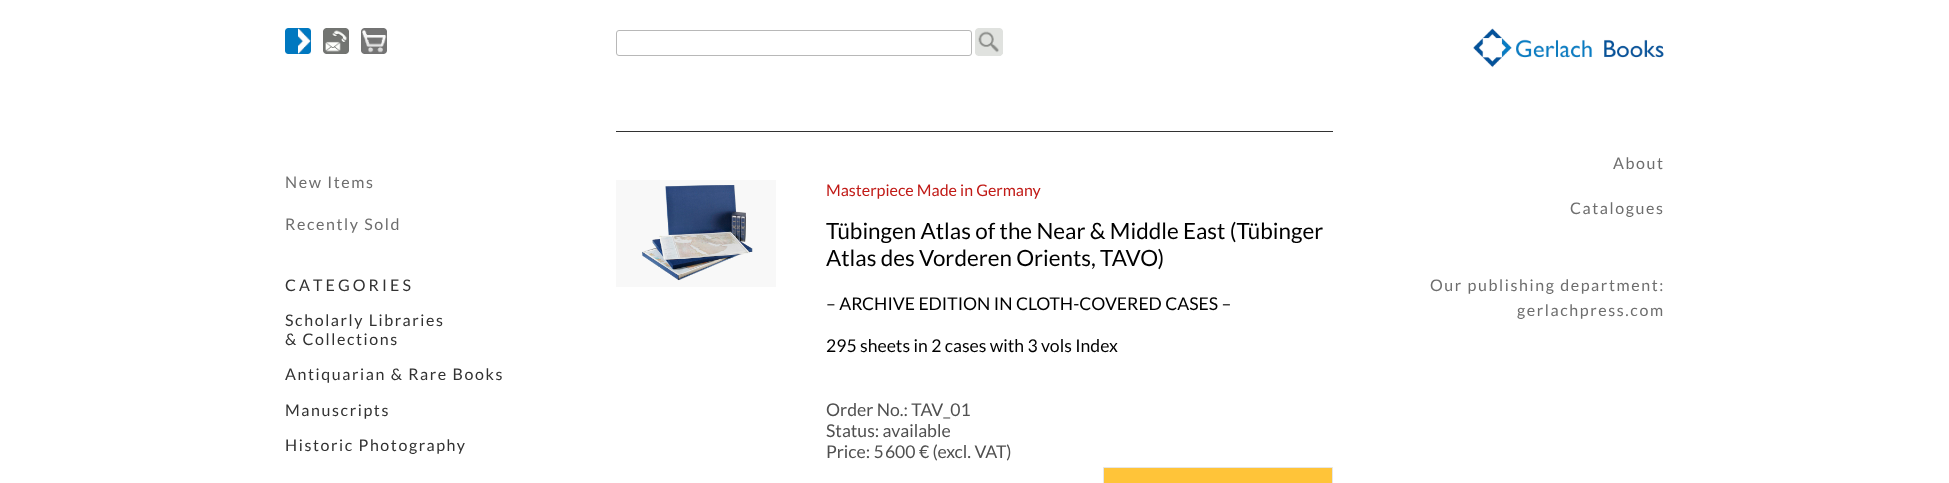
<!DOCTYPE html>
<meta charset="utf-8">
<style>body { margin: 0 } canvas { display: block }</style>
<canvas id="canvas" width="1949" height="483"></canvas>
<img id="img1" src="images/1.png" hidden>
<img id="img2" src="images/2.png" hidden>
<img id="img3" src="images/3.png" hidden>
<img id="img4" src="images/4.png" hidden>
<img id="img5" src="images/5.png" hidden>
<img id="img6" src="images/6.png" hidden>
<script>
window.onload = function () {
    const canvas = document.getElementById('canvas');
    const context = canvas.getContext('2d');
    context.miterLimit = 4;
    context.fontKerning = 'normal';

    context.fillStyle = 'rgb(255, 255, 255)';
    context.fillRect(0, 0, 1949, 483);
    context.drawImage(document.getElementById('img1'), 285, 28, 26, 26);
    context.drawImage(document.getElementById('img2'), 323, 28, 26, 26);
    context.drawImage(document.getElementById('img3'), 361, 28, 26, 26);
    context.beginPath();
    context.roundRect(616.5, 30.5, 355, 25, 2.5);
    context.strokeStyle = 'rgb(184, 184, 184)';
    context.stroke();
    context.drawImage(document.getElementById('img4'), 975, 28, 28, 28);
    context.drawImage(document.getElementById('img5'), 1473, 28, 191, 40);
    context.fillStyle = 'rgb(50, 50, 50)';
    context.fillRect(616, 131, 717, 1);
    context.drawImage(document.getElementById('img6'), 616, 180, 160, 107);
    context.fillStyle = 'rgb(255, 196, 57)';
    context.beginPath();
    context.rect(1103.5, 467.5, 229, 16);
    context.fill();
    context.strokeStyle = 'rgb(230, 230, 230)';
    context.stroke();
    context.letterSpacing = '1.6px';
    context.font = '16px Lato';
    context.fillStyle = 'rgb(110, 110, 110)';
    context.fillText('New Items', 285, 188);
    context.fillText('Recently Sold', 285, 230);
    context.letterSpacing = '0px';
    context.fillStyle = 'rgb(50, 50, 50)';
    context.fillText('C A T E G O R I E S', 285, 291);
    context.letterSpacing = '1.6px';
    context.fillText('Scholarly Libraries', 285, 326);
    context.fillText('& Collections', 285, 345);
    context.fillText('Antiquarian & Rare Books', 285, 380);
    context.fillText('Manuscripts', 285, 416);
    context.fillText('Historic Photography', 285, 451);
    context.letterSpacing = '0px';
    context.fillStyle = 'rgb(193, 27, 23)';
    context.fillText('Masterpiece Made in Germany', 826, 196);
    context.font = '22.4px Lato';
    context.fillStyle = 'rgb(0, 0, 0)';
    context.fillText('Tübingen Atlas of the Near & Middle East (Tübinger', 826, 239);
    context.fillText('Atlas des Vorderen Orients, TAVO)', 826, 266);
    context.font = '17.6px Lato';
    context.fillText('– ARCHIVE EDITION IN CLOTH-COVERED CASES –', 826, 310);
    context.fillText('295 sheets in 2 cases with 3 vols Index', 826, 352);
    context.fillStyle = 'rgb(80, 80, 80)';
    context.fillText('Order No.: TAV_01', 826, 416);
    context.fillText('Status: available', 826, 437);
    context.fillText('Price: 5 600 € (excl. VAT)', 826, 458);
    context.letterSpacing = '1.6px';
    context.font = '16px Lato';
    context.fillStyle = 'rgb(110, 110, 110)';
    context.fillText('About', 1613, 169);
    context.fillText('Catalogues', 1570, 214);
    context.fillText('Our publishing department:', 1430, 291);
    context.fillText('gerlachpress.com', 1517, 316);
};
</script>
